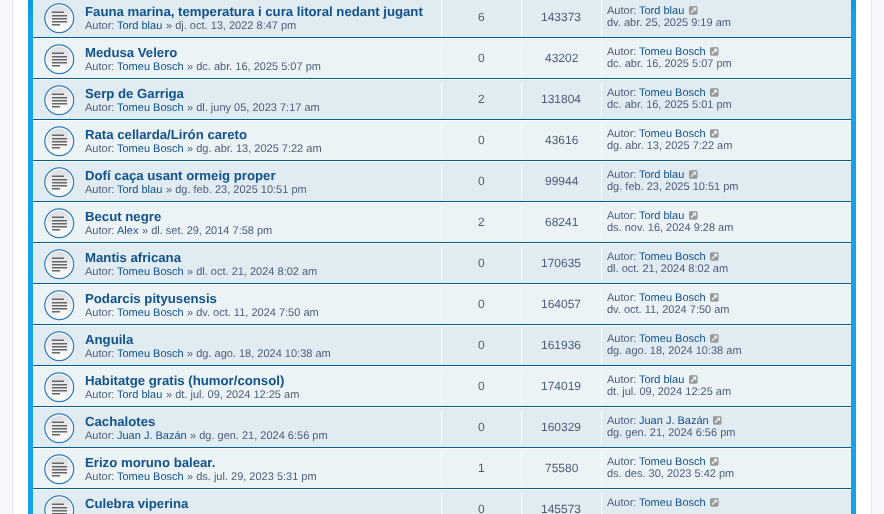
<!DOCTYPE html>
<meta charset="utf-8">
<style>body { margin: 0 } canvas { display: block }</style>
<canvas id="canvas" width="884" height="514"></canvas>
<img id="img1" src="images/1.png" hidden>
<img id="img2" src="images/2.png" hidden>
<img id="img3" src="images/3.png" hidden>
<img id="img4" src="images/4.png" hidden>
<img id="img5" src="images/5.png" hidden>
<script>
window.onload = function () {
    const canvas = document.getElementById('canvas');
    const context = canvas.getContext('2d');
    context.miterLimit = 4;
    context.fontKerning = 'normal';
    let gradient;

    context.fillStyle = 'rgb(245, 247, 250)';
    context.fillRect(0, 0, 884, 514);
    context.fillStyle = 'rgb(255, 255, 255)';
    context.beginPath();
    context.rect(12.5, -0.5, 859, 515);
    context.fill();
    context.strokeStyle = 'rgb(230, 233, 237)';
    context.stroke();
    gradient = context.createLinearGradient(442, -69, 442, 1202);
    gradient.addColorStop(0, 'rgb(106, 206, 255)');
    gradient.addColorStop(0, 'rgb(0, 118, 177)');
    gradient.addColorStop(0.07, 'rgb(18, 163, 235)');
    gradient.addColorStop(1, 'rgb(18, 163, 235)');
    context.fillStyle = gradient;
    context.fillRect(28, 0, 828, 514);
    context.fillStyle = 'rgb(225, 235, 242)';
    context.fillRect(33, 0, 818, 37);
    context.fillStyle = 'rgb(0, 96, 143)';
    context.fillRect(33, 37, 818, 1);
    context.drawImage(document.getElementById('img1'), 44, 3, 31, 31);
    context.fillStyle = 'rgb(255, 255, 255)';
    context.fillRect(441, 0, 1, 35);
    context.fillRect(521, 0, 1, 35);
    context.fillRect(601, 0, 1, 35);
    context.drawImage(document.getElementById('img2'), 689, 6, 9, 9);
    context.fillStyle = 'rgb(236, 243, 247)';
    context.fillRect(33, 39, 818, 39);
    context.fillStyle = 'rgb(255, 255, 255)';
    context.fillRect(33, 38, 818, 1);
    context.fillStyle = 'rgb(0, 96, 143)';
    context.fillRect(33, 78, 818, 1);
    context.drawImage(document.getElementById('img3'), 44, 44, 31, 31);
    context.fillStyle = 'rgb(255, 255, 255)';
    context.fillRect(441, 41, 1, 35);
    context.fillRect(521, 41, 1, 35);
    context.fillRect(601, 41, 1, 35);
    context.drawImage(document.getElementById('img4'), 710, 47, 9, 9);
    context.fillStyle = 'rgb(225, 235, 242)';
    context.fillRect(33, 80, 818, 39);
    context.fillStyle = 'rgb(255, 255, 255)';
    context.fillRect(33, 79, 818, 1);
    context.fillStyle = 'rgb(0, 96, 143)';
    context.fillRect(33, 119, 818, 1);
    context.drawImage(document.getElementById('img1'), 44, 85, 31, 31);
    context.fillStyle = 'rgb(255, 255, 255)';
    context.fillRect(441, 82, 1, 35);
    context.fillRect(521, 82, 1, 35);
    context.fillRect(601, 82, 1, 35);
    context.drawImage(document.getElementById('img2'), 710, 88, 9, 9);
    context.fillStyle = 'rgb(236, 243, 247)';
    context.fillRect(33, 121, 818, 39);
    context.fillStyle = 'rgb(255, 255, 255)';
    context.fillRect(33, 120, 818, 1);
    context.fillStyle = 'rgb(0, 96, 143)';
    context.fillRect(33, 160, 818, 1);
    context.drawImage(document.getElementById('img3'), 44, 126, 31, 31);
    context.fillStyle = 'rgb(255, 255, 255)';
    context.fillRect(441, 123, 1, 35);
    context.fillRect(521, 123, 1, 35);
    context.fillRect(601, 123, 1, 35);
    context.drawImage(document.getElementById('img4'), 710, 129, 9, 9);
    context.fillStyle = 'rgb(225, 235, 242)';
    context.fillRect(33, 162, 818, 39);
    context.fillStyle = 'rgb(255, 255, 255)';
    context.fillRect(33, 161, 818, 1);
    context.fillStyle = 'rgb(0, 96, 143)';
    context.fillRect(33, 201, 818, 1);
    context.drawImage(document.getElementById('img1'), 44, 167, 31, 31);
    context.fillStyle = 'rgb(255, 255, 255)';
    context.fillRect(441, 164, 1, 35);
    context.fillRect(521, 164, 1, 35);
    context.fillRect(601, 164, 1, 35);
    context.drawImage(document.getElementById('img2'), 689, 170, 9, 9);
    context.fillStyle = 'rgb(236, 243, 247)';
    context.fillRect(33, 203, 818, 39);
    context.fillStyle = 'rgb(255, 255, 255)';
    context.fillRect(33, 202, 818, 1);
    context.fillStyle = 'rgb(0, 96, 143)';
    context.fillRect(33, 242, 818, 1);
    context.drawImage(document.getElementById('img3'), 44, 208, 31, 31);
    context.fillStyle = 'rgb(255, 255, 255)';
    context.fillRect(441, 205, 1, 35);
    context.fillRect(521, 205, 1, 35);
    context.fillRect(601, 205, 1, 35);
    context.drawImage(document.getElementById('img4'), 689, 211, 9, 9);
    context.fillStyle = 'rgb(225, 235, 242)';
    context.fillRect(33, 244, 818, 39);
    context.fillStyle = 'rgb(255, 255, 255)';
    context.fillRect(33, 243, 818, 1);
    context.fillStyle = 'rgb(0, 96, 143)';
    context.fillRect(33, 283, 818, 1);
    context.drawImage(document.getElementById('img1'), 44, 249, 31, 31);
    context.fillStyle = 'rgb(255, 255, 255)';
    context.fillRect(441, 246, 1, 35);
    context.fillRect(521, 246, 1, 35);
    context.fillRect(601, 246, 1, 35);
    context.drawImage(document.getElementById('img2'), 710, 252, 9, 9);
    context.fillStyle = 'rgb(236, 243, 247)';
    context.fillRect(33, 285, 818, 39);
    context.fillStyle = 'rgb(255, 255, 255)';
    context.fillRect(33, 284, 818, 1);
    context.fillStyle = 'rgb(0, 96, 143)';
    context.fillRect(33, 324, 818, 1);
    context.drawImage(document.getElementById('img3'), 44, 290, 31, 31);
    context.fillStyle = 'rgb(255, 255, 255)';
    context.fillRect(441, 287, 1, 35);
    context.fillRect(521, 287, 1, 35);
    context.fillRect(601, 287, 1, 35);
    context.drawImage(document.getElementById('img4'), 710, 293, 9, 9);
    context.fillStyle = 'rgb(225, 235, 242)';
    context.fillRect(33, 326, 818, 39);
    context.fillStyle = 'rgb(255, 255, 255)';
    context.fillRect(33, 325, 818, 1);
    context.fillStyle = 'rgb(0, 96, 143)';
    context.fillRect(33, 365, 818, 1);
    context.drawImage(document.getElementById('img1'), 44, 331, 31, 31);
    context.fillStyle = 'rgb(255, 255, 255)';
    context.fillRect(441, 328, 1, 35);
    context.fillRect(521, 328, 1, 35);
    context.fillRect(601, 328, 1, 35);
    context.drawImage(document.getElementById('img2'), 710, 334, 9, 9);
    context.fillStyle = 'rgb(236, 243, 247)';
    context.fillRect(33, 367, 818, 39);
    context.fillStyle = 'rgb(255, 255, 255)';
    context.fillRect(33, 366, 818, 1);
    context.fillStyle = 'rgb(0, 96, 143)';
    context.fillRect(33, 406, 818, 1);
    context.drawImage(document.getElementById('img3'), 44, 372, 31, 31);
    context.fillStyle = 'rgb(255, 255, 255)';
    context.fillRect(441, 369, 1, 35);
    context.fillRect(521, 369, 1, 35);
    context.fillRect(601, 369, 1, 35);
    context.drawImage(document.getElementById('img4'), 689, 375, 9, 9);
    context.fillStyle = 'rgb(225, 235, 242)';
    context.fillRect(33, 408, 818, 39);
    context.fillStyle = 'rgb(255, 255, 255)';
    context.fillRect(33, 407, 818, 1);
    context.fillStyle = 'rgb(0, 96, 143)';
    context.fillRect(33, 447, 818, 1);
    context.drawImage(document.getElementById('img1'), 44, 413, 31, 31);
    context.fillStyle = 'rgb(255, 255, 255)';
    context.fillRect(441, 410, 1, 35);
    context.fillRect(521, 410, 1, 35);
    context.fillRect(601, 410, 1, 35);
    context.drawImage(document.getElementById('img2'), 713, 416, 9, 9);
    context.fillStyle = 'rgb(236, 243, 247)';
    context.fillRect(33, 449, 818, 39);
    context.fillStyle = 'rgb(255, 255, 255)';
    context.fillRect(33, 448, 818, 1);
    context.fillStyle = 'rgb(0, 96, 143)';
    context.fillRect(33, 488, 818, 1);
    context.drawImage(document.getElementById('img3'), 44, 454, 31, 31);
    context.fillStyle = 'rgb(255, 255, 255)';
    context.fillRect(441, 451, 1, 35);
    context.fillRect(521, 451, 1, 35);
    context.fillRect(601, 451, 1, 35);
    context.drawImage(document.getElementById('img4'), 710, 457, 9, 9);
    context.fillStyle = 'rgb(225, 235, 242)';
    context.fillRect(33, 490, 818, 24);
    context.fillStyle = 'rgb(255, 255, 255)';
    context.fillRect(33, 489, 818, 1);
    context.drawImage(document.getElementById('img5'), 44, 495, 31, 19);
    context.fillRect(601, 492, 1, 22);
    context.drawImage(document.getElementById('img2'), 710, 498, 9, 9);
    context.fillRect(441, 492, 1, 22);
    context.fillRect(521, 492, 1, 22);
    context.font = 'bold 13.2px Liberation Sans';
    context.fillStyle = 'rgb(16, 82, 137)';
    context.fillText('Fauna marina, temperatura i cura litoral nedant jugant', 85, 16);
    context.font = '11px Liberation Sans';
    context.fillStyle = 'rgb(76, 93, 119)';
    context.fillText('Autor:', 85, 29);
    context.fillStyle = 'rgb(16, 82, 137)';
    context.fillText('Tord blau', 117, 29);
    context.fillStyle = 'rgb(76, 93, 119)';
    context.fillText('» dj. oct. 13, 2022 8:47 pm', 166, 29);
    context.font = '12px Liberation Sans';
    context.fillText('6', 478, 21);
    context.fillText('143373', 541, 21);
    context.font = '11px Liberation Sans';
    context.fillText('Autor:', 607, 14);
    context.fillStyle = 'rgb(16, 82, 137)';
    context.fillText('Tord blau', 639, 14);
    context.fillStyle = 'rgb(76, 93, 119)';
    context.fillText('dv. abr. 25, 2025 9:19 am', 607, 26);
    context.font = 'bold 13.2px Liberation Sans';
    context.fillStyle = 'rgb(16, 82, 137)';
    context.fillText('Medusa Velero', 85, 57);
    context.font = '11px Liberation Sans';
    context.fillStyle = 'rgb(76, 93, 119)';
    context.fillText('Autor:', 85, 70);
    context.fillStyle = 'rgb(16, 82, 137)';
    context.fillText('Tomeu Bosch', 117, 70);
    context.fillStyle = 'rgb(76, 93, 119)';
    context.fillText('» dc. abr. 16, 2025 5:07 pm', 187, 70);
    context.font = '12px Liberation Sans';
    context.fillText('0', 478, 62);
    context.fillText('43202', 545, 62);
    context.font = '11px Liberation Sans';
    context.fillText('Autor:', 607, 55);
    context.fillStyle = 'rgb(16, 82, 137)';
    context.fillText('Tomeu Bosch', 639, 55);
    context.fillStyle = 'rgb(76, 93, 119)';
    context.fillText('dc. abr. 16, 2025 5:07 pm', 607, 67);
    context.font = 'bold 13.2px Liberation Sans';
    context.fillStyle = 'rgb(16, 82, 137)';
    context.fillText('Serp de Garriga', 85, 98);
    context.font = '11px Liberation Sans';
    context.fillStyle = 'rgb(76, 93, 119)';
    context.fillText('Autor:', 85, 111);
    context.fillStyle = 'rgb(16, 82, 137)';
    context.fillText('Tomeu Bosch', 117, 111);
    context.fillStyle = 'rgb(76, 93, 119)';
    context.fillText('» dl. juny 05, 2023 7:17 am', 187, 111);
    context.font = '12px Liberation Sans';
    context.fillText('2', 478, 103);
    context.fillText('131804', 541, 103);
    context.font = '11px Liberation Sans';
    context.fillText('Autor:', 607, 96);
    context.fillStyle = 'rgb(16, 82, 137)';
    context.fillText('Tomeu Bosch', 639, 96);
    context.fillStyle = 'rgb(76, 93, 119)';
    context.fillText('dc. abr. 16, 2025 5:01 pm', 607, 108);
    context.font = 'bold 13.2px Liberation Sans';
    context.fillStyle = 'rgb(16, 82, 137)';
    context.fillText('Rata cellarda/Lirón careto', 85, 139);
    context.font = '11px Liberation Sans';
    context.fillStyle = 'rgb(76, 93, 119)';
    context.fillText('Autor:', 85, 152);
    context.fillStyle = 'rgb(16, 82, 137)';
    context.fillText('Tomeu Bosch', 117, 152);
    context.fillStyle = 'rgb(76, 93, 119)';
    context.fillText('» dg. abr. 13, 2025 7:22 am', 187, 152);
    context.font = '12px Liberation Sans';
    context.fillText('0', 478, 144);
    context.fillText('43616', 545, 144);
    context.font = '11px Liberation Sans';
    context.fillText('Autor:', 607, 137);
    context.fillStyle = 'rgb(16, 82, 137)';
    context.fillText('Tomeu Bosch', 639, 137);
    context.fillStyle = 'rgb(76, 93, 119)';
    context.fillText('dg. abr. 13, 2025 7:22 am', 607, 149);
    context.font = 'bold 13.2px Liberation Sans';
    context.fillStyle = 'rgb(16, 82, 137)';
    context.fillText('Dofí caça usant ormeig proper', 85, 180);
    context.font = '11px Liberation Sans';
    context.fillStyle = 'rgb(76, 93, 119)';
    context.fillText('Autor:', 85, 193);
    context.fillStyle = 'rgb(16, 82, 137)';
    context.fillText('Tord blau', 117, 193);
    context.fillStyle = 'rgb(76, 93, 119)';
    context.fillText('» dg. feb. 23, 2025 10:51 pm', 166, 193);
    context.font = '12px Liberation Sans';
    context.fillText('0', 478, 185);
    context.fillText('99944', 545, 185);
    context.font = '11px Liberation Sans';
    context.fillText('Autor:', 607, 178);
    context.fillStyle = 'rgb(16, 82, 137)';
    context.fillText('Tord blau', 639, 178);
    context.fillStyle = 'rgb(76, 93, 119)';
    context.fillText('dg. feb. 23, 2025 10:51 pm', 607, 190);
    context.font = 'bold 13.2px Liberation Sans';
    context.fillStyle = 'rgb(16, 82, 137)';
    context.fillText('Becut negre', 85, 221);
    context.font = '11px Liberation Sans';
    context.fillStyle = 'rgb(76, 93, 119)';
    context.fillText('Autor:', 85, 234);
    context.fillStyle = 'rgb(16, 82, 137)';
    context.fillText('Alex', 117, 234);
    context.fillStyle = 'rgb(76, 93, 119)';
    context.fillText('» dl. set. 29, 2014 7:58 pm', 142, 234);
    context.font = '12px Liberation Sans';
    context.fillText('2', 478, 226);
    context.fillText('68241', 545, 226);
    context.font = '11px Liberation Sans';
    context.fillText('Autor:', 607, 219);
    context.fillStyle = 'rgb(16, 82, 137)';
    context.fillText('Tord blau', 639, 219);
    context.fillStyle = 'rgb(76, 93, 119)';
    context.fillText('ds. nov. 16, 2024 9:28 am', 607, 231);
    context.font = 'bold 13.2px Liberation Sans';
    context.fillStyle = 'rgb(16, 82, 137)';
    context.fillText('Mantis africana', 85, 262);
    context.font = '11px Liberation Sans';
    context.fillStyle = 'rgb(76, 93, 119)';
    context.fillText('Autor:', 85, 275);
    context.fillStyle = 'rgb(16, 82, 137)';
    context.fillText('Tomeu Bosch', 117, 275);
    context.fillStyle = 'rgb(76, 93, 119)';
    context.fillText('» dl. oct. 21, 2024 8:02 am', 187, 275);
    context.font = '12px Liberation Sans';
    context.fillText('0', 478, 267);
    context.fillText('170635', 541, 267);
    context.font = '11px Liberation Sans';
    context.fillText('Autor:', 607, 260);
    context.fillStyle = 'rgb(16, 82, 137)';
    context.fillText('Tomeu Bosch', 639, 260);
    context.fillStyle = 'rgb(76, 93, 119)';
    context.fillText('dl. oct. 21, 2024 8:02 am', 607, 272);
    context.font = 'bold 13.2px Liberation Sans';
    context.fillStyle = 'rgb(16, 82, 137)';
    context.fillText('Podarcis pityusensis', 85, 303);
    context.font = '11px Liberation Sans';
    context.fillStyle = 'rgb(76, 93, 119)';
    context.fillText('Autor:', 85, 316);
    context.fillStyle = 'rgb(16, 82, 137)';
    context.fillText('Tomeu Bosch', 117, 316);
    context.fillStyle = 'rgb(76, 93, 119)';
    context.fillText('» dv. oct. 11, 2024 7:50 am', 187, 316);
    context.font = '12px Liberation Sans';
    context.fillText('0', 478, 308);
    context.fillText('164057', 541, 308);
    context.font = '11px Liberation Sans';
    context.fillText('Autor:', 607, 301);
    context.fillStyle = 'rgb(16, 82, 137)';
    context.fillText('Tomeu Bosch', 639, 301);
    context.fillStyle = 'rgb(76, 93, 119)';
    context.fillText('dv. oct. 11, 2024 7:50 am', 607, 313);
    context.font = 'bold 13.2px Liberation Sans';
    context.fillStyle = 'rgb(16, 82, 137)';
    context.fillText('Anguila', 85, 344);
    context.font = '11px Liberation Sans';
    context.fillStyle = 'rgb(76, 93, 119)';
    context.fillText('Autor:', 85, 357);
    context.fillStyle = 'rgb(16, 82, 137)';
    context.fillText('Tomeu Bosch', 117, 357);
    context.fillStyle = 'rgb(76, 93, 119)';
    context.fillText('» dg. ago. 18, 2024 10:38 am', 187, 357);
    context.font = '12px Liberation Sans';
    context.fillText('0', 478, 349);
    context.fillText('161936', 541, 349);
    context.font = '11px Liberation Sans';
    context.fillText('Autor:', 607, 342);
    context.fillStyle = 'rgb(16, 82, 137)';
    context.fillText('Tomeu Bosch', 639, 342);
    context.fillStyle = 'rgb(76, 93, 119)';
    context.fillText('dg. ago. 18, 2024 10:38 am', 607, 354);
    context.font = 'bold 13.2px Liberation Sans';
    context.fillStyle = 'rgb(16, 82, 137)';
    context.fillText('Habitatge gratis (humor/consol)', 85, 385);
    context.font = '11px Liberation Sans';
    context.fillStyle = 'rgb(76, 93, 119)';
    context.fillText('Autor:', 85, 398);
    context.fillStyle = 'rgb(16, 82, 137)';
    context.fillText('Tord blau', 117, 398);
    context.fillStyle = 'rgb(76, 93, 119)';
    context.fillText('» dt. jul. 09, 2024 12:25 am', 166, 398);
    context.font = '12px Liberation Sans';
    context.fillText('0', 478, 390);
    context.fillText('174019', 541, 390);
    context.font = '11px Liberation Sans';
    context.fillText('Autor:', 607, 383);
    context.fillStyle = 'rgb(16, 82, 137)';
    context.fillText('Tord blau', 639, 383);
    context.fillStyle = 'rgb(76, 93, 119)';
    context.fillText('dt. jul. 09, 2024 12:25 am', 607, 395);
    context.font = 'bold 13.2px Liberation Sans';
    context.fillStyle = 'rgb(16, 82, 137)';
    context.fillText('Cachalotes', 85, 426);
    context.font = '11px Liberation Sans';
    context.fillStyle = 'rgb(76, 93, 119)';
    context.fillText('Autor:', 85, 439);
    context.fillStyle = 'rgb(16, 82, 137)';
    context.fillText('Juan J. Bazán', 117, 439);
    context.fillStyle = 'rgb(76, 93, 119)';
    context.fillText('» dg. gen. 21, 2024 6:56 pm', 190, 439);
    context.font = '12px Liberation Sans';
    context.fillText('0', 478, 431);
    context.fillText('160329', 541, 431);
    context.font = '11px Liberation Sans';
    context.fillText('Autor:', 607, 424);
    context.fillStyle = 'rgb(16, 82, 137)';
    context.fillText('Juan J. Bazán', 639, 424);
    context.fillStyle = 'rgb(76, 93, 119)';
    context.fillText('dg. gen. 21, 2024 6:56 pm', 607, 436);
    context.font = 'bold 13.2px Liberation Sans';
    context.fillStyle = 'rgb(16, 82, 137)';
    context.fillText('Erizo moruno balear.', 85, 467);
    context.font = '11px Liberation Sans';
    context.fillStyle = 'rgb(76, 93, 119)';
    context.fillText('Autor:', 85, 480);
    context.fillStyle = 'rgb(16, 82, 137)';
    context.fillText('Tomeu Bosch', 117, 480);
    context.fillStyle = 'rgb(76, 93, 119)';
    context.fillText('» ds. jul. 29, 2023 5:31 pm', 187, 480);
    context.font = '12px Liberation Sans';
    context.fillText('1', 478, 472);
    context.fillText('75580', 545, 472);
    context.font = '11px Liberation Sans';
    context.fillText('Autor:', 607, 465);
    context.fillStyle = 'rgb(16, 82, 137)';
    context.fillText('Tomeu Bosch', 639, 465);
    context.fillStyle = 'rgb(76, 93, 119)';
    context.fillText('ds. des. 30, 2023 5:42 pm', 607, 477);
    context.font = 'bold 13.2px Liberation Sans';
    context.fillStyle = 'rgb(16, 82, 137)';
    context.fillText('Culebra viperina', 85, 508);
    context.font = '11px Liberation Sans';
    context.fillStyle = 'rgb(76, 93, 119)';
    context.fillText('Autor:', 607, 506);
    context.fillStyle = 'rgb(16, 82, 137)';
    context.fillText('Tomeu Bosch', 639, 506);
    context.font = '12px Liberation Sans';
    context.fillStyle = 'rgb(76, 93, 119)';
    context.fillText('0', 478, 513);
    context.fillText('145573', 541, 513);
};
</script>
